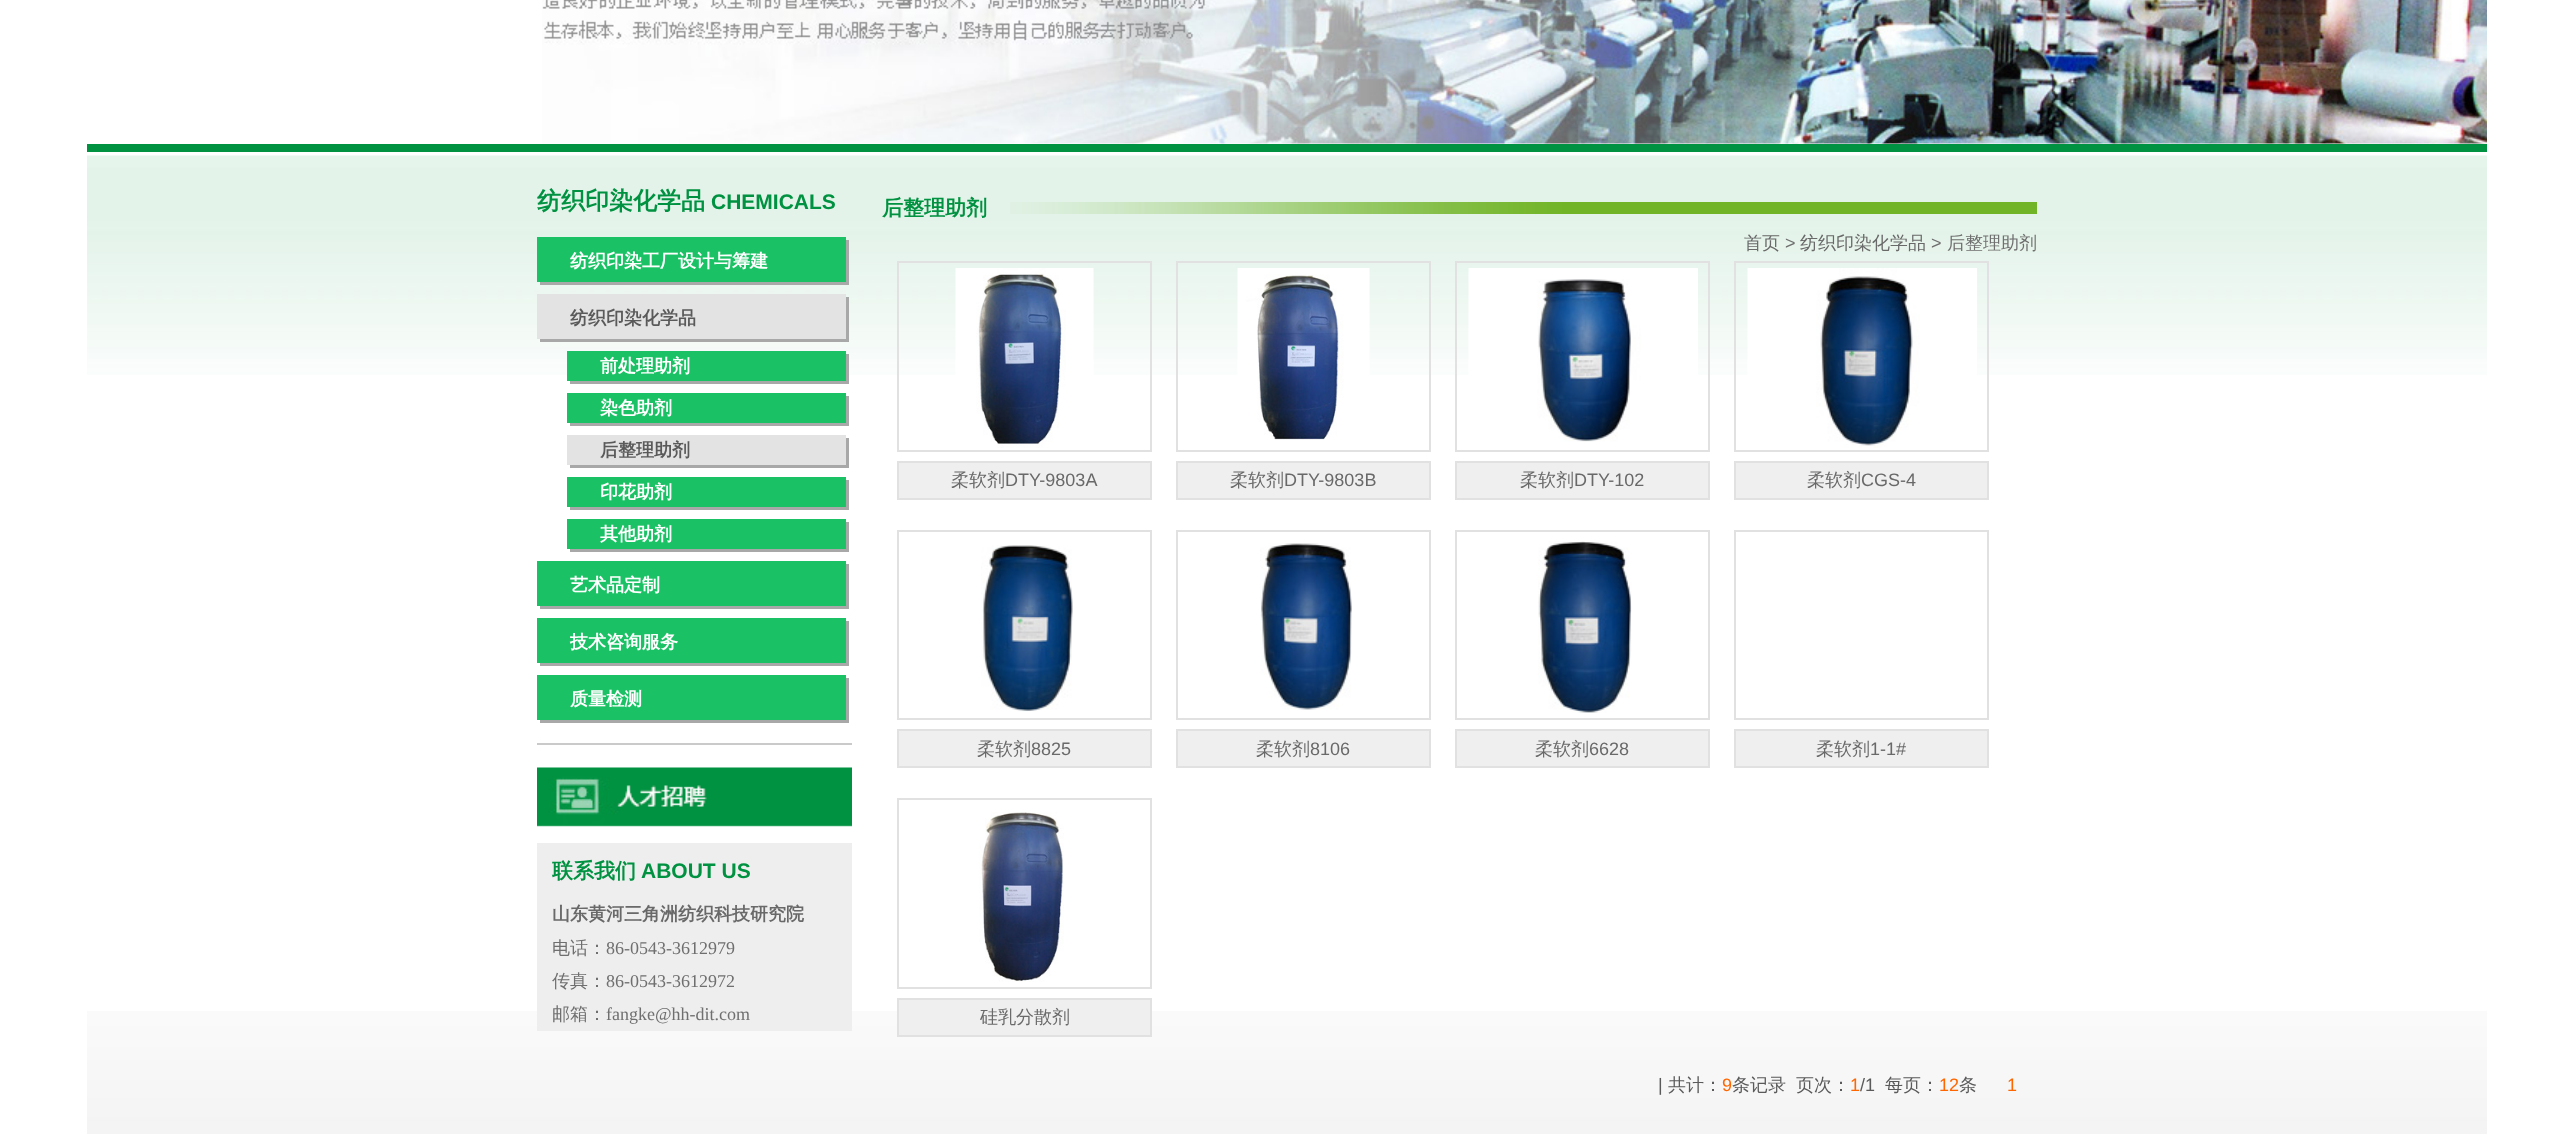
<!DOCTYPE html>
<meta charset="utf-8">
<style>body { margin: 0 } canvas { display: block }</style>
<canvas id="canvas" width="2573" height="1134"></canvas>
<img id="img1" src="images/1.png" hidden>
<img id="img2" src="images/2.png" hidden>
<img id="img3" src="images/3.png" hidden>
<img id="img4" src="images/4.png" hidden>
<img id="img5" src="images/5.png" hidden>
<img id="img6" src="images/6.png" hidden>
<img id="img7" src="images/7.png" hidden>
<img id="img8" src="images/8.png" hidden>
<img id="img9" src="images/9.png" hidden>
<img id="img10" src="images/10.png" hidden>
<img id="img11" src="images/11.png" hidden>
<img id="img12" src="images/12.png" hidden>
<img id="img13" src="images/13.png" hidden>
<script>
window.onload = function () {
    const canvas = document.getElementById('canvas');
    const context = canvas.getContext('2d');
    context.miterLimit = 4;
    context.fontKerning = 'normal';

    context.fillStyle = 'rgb(255, 255, 255)';
    context.fillRect(0, 0, 2573, 1134);
    context.fillStyle = 'rgb(0, 146, 65)';
    context.fillRect(87, 144, 2400, 8);
    context.drawImage(document.getElementById('img1'), 542, 0, 1945, 144);
    context.drawImage(document.getElementById('img2'), 87, 155, 2400, 220);
    context.drawImage(document.getElementById('img3'), 87, 1011, 2400, 123);
    context.fillStyle = 'rgb(168, 168, 168)';
    context.fillRect(540, 240, 309, 45);
    context.fillStyle = 'rgb(27, 194, 101)';
    context.fillRect(537, 237, 309, 45);
    context.fillStyle = 'rgb(168, 168, 168)';
    context.fillRect(540, 297, 309, 45);
    context.fillStyle = 'rgb(226, 227, 226)';
    context.fillRect(537, 294, 309, 45);
    context.fillStyle = 'rgb(168, 168, 168)';
    context.fillRect(570, 354, 279, 30);
    context.fillStyle = 'rgb(27, 194, 101)';
    context.fillRect(567, 351, 279, 30);
    context.fillStyle = 'rgb(168, 168, 168)';
    context.fillRect(570, 396, 279, 30);
    context.fillStyle = 'rgb(27, 194, 101)';
    context.fillRect(567, 393, 279, 30);
    context.fillStyle = 'rgb(168, 168, 168)';
    context.fillRect(570, 438, 279, 30);
    context.fillStyle = 'rgb(226, 227, 226)';
    context.fillRect(567, 435, 279, 30);
    context.fillStyle = 'rgb(168, 168, 168)';
    context.fillRect(570, 480, 279, 30);
    context.fillStyle = 'rgb(27, 194, 101)';
    context.fillRect(567, 477, 279, 30);
    context.fillStyle = 'rgb(168, 168, 168)';
    context.fillRect(570, 522, 279, 30);
    context.fillStyle = 'rgb(27, 194, 101)';
    context.fillRect(567, 519, 279, 30);
    context.fillStyle = 'rgb(168, 168, 168)';
    context.fillRect(540, 564, 309, 45);
    context.fillStyle = 'rgb(27, 194, 101)';
    context.fillRect(537, 561, 309, 45);
    context.fillStyle = 'rgb(168, 168, 168)';
    context.fillRect(540, 621, 309, 45);
    context.fillStyle = 'rgb(27, 194, 101)';
    context.fillRect(537, 618, 309, 45);
    context.fillStyle = 'rgb(168, 168, 168)';
    context.fillRect(540, 678, 309, 45);
    context.fillStyle = 'rgb(27, 194, 101)';
    context.fillRect(537, 675, 309, 45);
    context.fillStyle = 'rgb(202, 202, 202)';
    context.fillRect(537, 743, 315, 2);
    context.drawImage(document.getElementById('img4'), 537, 767, 315, 60);
    context.fillStyle = 'rgb(238, 238, 238)';
    context.fillRect(537, 843, 315, 188);
    context.drawImage(document.getElementById('img5'), 1010, 202, 1027, 12);
    context.strokeStyle = 'rgb(225, 225, 225)';
    context.lineWidth = 2;
    context.strokeRect(898, 262, 253, 189);
    context.drawImage(document.getElementById('img6'), 955, 268, 139, 180);
    context.fillStyle = 'rgb(239, 239, 239)';
    context.beginPath();
    context.rect(898, 462, 253, 37);
    context.fill();
    context.stroke();
    context.strokeRect(1177, 262, 253, 189);
    context.drawImage(document.getElementById('img7'), 1237, 268, 133, 172);
    context.beginPath();
    context.rect(1177, 462, 253, 37);
    context.fill();
    context.stroke();
    context.strokeRect(1456, 262, 253, 189);
    context.drawImage(document.getElementById('img8'), 1468, 268, 230, 174);
    context.beginPath();
    context.rect(1456, 462, 253, 37);
    context.fill();
    context.stroke();
    context.strokeRect(1735, 262, 253, 189);
    context.drawImage(document.getElementById('img9'), 1747, 268, 230, 180);
    context.beginPath();
    context.rect(1735, 462, 253, 37);
    context.fill();
    context.stroke();
    context.strokeRect(898, 531, 253, 188);
    context.drawImage(document.getElementById('img10'), 981, 545, 92, 167);
    context.beginPath();
    context.rect(898, 730, 253, 37);
    context.fill();
    context.stroke();
    context.strokeRect(1177, 531, 253, 188);
    context.drawImage(document.getElementById('img11'), 1260, 543, 92, 167);
    context.beginPath();
    context.rect(1177, 730, 253, 37);
    context.fill();
    context.stroke();
    context.strokeRect(1456, 531, 253, 188);
    context.drawImage(document.getElementById('img12'), 1538, 541, 94, 172);
    context.beginPath();
    context.rect(1456, 730, 253, 37);
    context.fill();
    context.stroke();
    context.strokeRect(1735, 531, 253, 188);
    context.beginPath();
    context.rect(1735, 730, 253, 37);
    context.fill();
    context.stroke();
    context.strokeRect(898, 799, 253, 189);
    context.drawImage(document.getElementById('img13'), 979, 812, 85, 170);
    context.beginPath();
    context.rect(898, 999, 253, 37);
    context.fill();
    context.stroke();
    context.font = 'bold 24px WenQuanYi Zen Hei';
    context.fillStyle = 'rgb(0, 146, 65)';
    context.fillText('纺织印染化学品', 537, 209);
    context.font = 'bold 21px Liberation Sans';
    context.fillText('CHEMICALS', 711, 209);
    context.font = 'bold 18px WenQuanYi Zen Hei';
    context.fillStyle = 'rgb(255, 255, 255)';
    context.fillText('纺织印染工厂设计与筹建', 570, 267);
    context.fillStyle = 'rgb(90, 90, 90)';
    context.fillText('纺织印染化学品', 570, 324);
    context.fillStyle = 'rgb(255, 255, 255)';
    context.fillText('前处理助剂', 600, 372);
    context.fillText('染色助剂', 600, 414);
    context.fillStyle = 'rgb(90, 90, 90)';
    context.fillText('后整理助剂', 600, 456);
    context.fillStyle = 'rgb(255, 255, 255)';
    context.fillText('印花助剂', 600, 498);
    context.fillText('其他助剂', 600, 540);
    context.fillText('艺术品定制', 570, 591);
    context.fillText('技术咨询服务', 570, 648);
    context.fillText('质量检测', 570, 705);
    context.font = 'bold 21px WenQuanYi Zen Hei';
    context.fillStyle = 'rgb(0, 146, 65)';
    context.fillText('联系我们', 552, 878);
    context.font = 'bold 21px Liberation Sans';
    context.fillText('ABOUT US', 641, 878);
    context.font = 'bold 18px WenQuanYi Zen Hei';
    context.fillStyle = 'rgb(105, 105, 105)';
    context.fillText('山东黄河三角洲纺织科技研究院', 552, 920);
    context.font = '500 18px WenQuanYi Zen Hei';
    context.fillStyle = 'rgb(111, 111, 111)';
    context.fillText('电话：', 552, 954);
    context.font = '18px Liberation Serif';
    context.fillText('86-0543-3612979', 606, 954);
    context.font = '500 18px WenQuanYi Zen Hei';
    context.fillText('传真：', 552, 987);
    context.font = '18px Liberation Serif';
    context.fillText('86-0543-3612972', 606, 987);
    context.font = '500 18px WenQuanYi Zen Hei';
    context.fillText('邮箱：', 552, 1020);
    context.font = '18px Liberation Serif';
    context.fillText('fangke@hh-dit.com', 606, 1020);
    context.font = 'bold 21px WenQuanYi Zen Hei';
    context.fillStyle = 'rgb(0, 146, 65)';
    context.fillText('后整理助剂', 882, 215);
    context.font = '500 18px WenQuanYi Zen Hei';
    context.fillStyle = 'rgb(105, 105, 105)';
    context.fillText('首页', 1744, 249);
    context.font = '18px Liberation Sans';
    context.fillStyle = 'rgb(111, 111, 111)';
    context.fillText('>', 1785, 249);
    context.font = '500 18px WenQuanYi Zen Hei';
    context.fillStyle = 'rgb(105, 105, 105)';
    context.fillText('纺织印染化学品', 1800, 249);
    context.font = '18px Liberation Sans';
    context.fillStyle = 'rgb(111, 111, 111)';
    context.fillText('>', 1931, 249);
    context.font = '500 18px WenQuanYi Zen Hei';
    context.fillText('后整理助剂', 1947, 249);
    context.fillStyle = 'rgb(105, 105, 105)';
    context.fillText('柔软剂', 951, 486);
    context.font = '18px Liberation Sans';
    context.fillText('DTY-9803A', 1005, 486);
    context.font = '500 18px WenQuanYi Zen Hei';
    context.fillText('柔软剂', 1230, 486);
    context.font = '18px Liberation Sans';
    context.fillText('DTY-9803B', 1284, 486);
    context.font = '500 18px WenQuanYi Zen Hei';
    context.fillText('柔软剂', 1520, 486);
    context.font = '18px Liberation Sans';
    context.fillText('DTY-102', 1574, 486);
    context.font = '500 18px WenQuanYi Zen Hei';
    context.fillText('柔软剂', 1807, 486);
    context.font = '18px Liberation Sans';
    context.fillText('CGS-4', 1861, 486);
    context.font = '500 18px WenQuanYi Zen Hei';
    context.fillText('柔软剂', 977, 755);
    context.font = '18px Liberation Sans';
    context.fillText('8825', 1031, 755);
    context.font = '500 18px WenQuanYi Zen Hei';
    context.fillText('柔软剂', 1256, 755);
    context.font = '18px Liberation Sans';
    context.fillText('8106', 1310, 755);
    context.font = '500 18px WenQuanYi Zen Hei';
    context.fillText('柔软剂', 1535, 755);
    context.font = '18px Liberation Sans';
    context.fillText('6628', 1589, 755);
    context.font = '500 18px WenQuanYi Zen Hei';
    context.fillText('柔软剂', 1816, 755);
    context.font = '18px Liberation Sans';
    context.fillText('1-1#', 1870, 755);
    context.font = '500 18px WenQuanYi Zen Hei';
    context.fillText('硅乳分散剂', 980, 1023);
    context.font = '18px Liberation Sans';
    context.fillStyle = 'rgb(90, 90, 90)';
    context.fillText('|', 1658, 1091);
    context.font = '500 18px WenQuanYi Zen Hei';
    context.fillText('共计：', 1668, 1091);
    context.font = '18px Liberation Sans';
    context.fillStyle = 'rgb(255, 102, 0)';
    context.fillText('9', 1722, 1091);
    context.font = '500 18px WenQuanYi Zen Hei';
    context.fillStyle = 'rgb(90, 90, 90)';
    context.fillText('条记录', 1732, 1091);
    context.fillText('页次：', 1796, 1091);
    context.font = '18px Liberation Sans';
    context.fillStyle = 'rgb(255, 102, 0)';
    context.fillText('1', 1850, 1091);
    context.fillStyle = 'rgb(90, 90, 90)';
    context.fillText('/1', 1860, 1091);
    context.font = '500 18px WenQuanYi Zen Hei';
    context.fillText('每页：', 1885, 1091);
    context.font = '18px Liberation Sans';
    context.fillStyle = 'rgb(255, 102, 0)';
    context.fillText('12', 1939, 1091);
    context.font = '500 18px WenQuanYi Zen Hei';
    context.fillStyle = 'rgb(90, 90, 90)';
    context.fillText('条', 1959, 1091);
    context.font = '18px Liberation Sans';
    context.fillStyle = 'rgb(255, 102, 0)';
    context.fillText('1', 2007, 1091);
};
</script>
